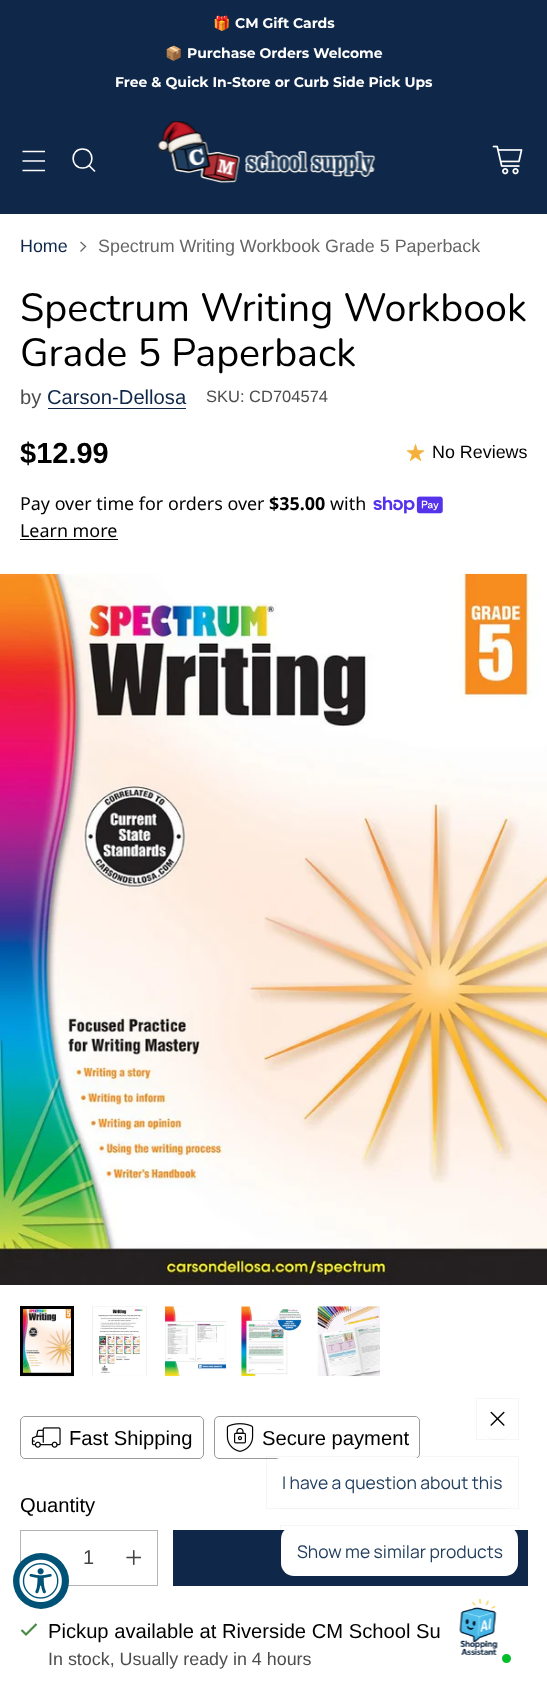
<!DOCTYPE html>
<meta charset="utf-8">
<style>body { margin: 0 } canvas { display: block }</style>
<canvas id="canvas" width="547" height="1694"></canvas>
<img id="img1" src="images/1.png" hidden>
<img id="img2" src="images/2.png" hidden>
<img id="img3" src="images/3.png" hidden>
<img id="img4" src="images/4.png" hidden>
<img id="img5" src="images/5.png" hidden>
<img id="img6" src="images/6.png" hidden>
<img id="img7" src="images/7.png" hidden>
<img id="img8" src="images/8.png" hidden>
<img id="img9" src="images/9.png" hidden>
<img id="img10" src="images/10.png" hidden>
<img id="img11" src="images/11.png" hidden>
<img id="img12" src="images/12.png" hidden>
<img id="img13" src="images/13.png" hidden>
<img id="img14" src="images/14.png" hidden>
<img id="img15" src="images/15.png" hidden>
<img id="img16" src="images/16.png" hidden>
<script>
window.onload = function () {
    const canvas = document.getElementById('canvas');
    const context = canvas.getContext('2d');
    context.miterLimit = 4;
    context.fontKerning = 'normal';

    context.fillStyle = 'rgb(255, 255, 255)';
    context.fillRect(0, 0, 547, 1694);
    context.fillStyle = 'rgb(15, 39, 72)';
    context.fillRect(0, 0, 547, 214);
    context.beginPath();
    context.moveTo(22.5, 161);
    context.lineTo(45, 161);
    context.moveTo(22.5, 151.5);
    context.lineTo(45, 151.5);
    context.moveTo(22.5, 170.5);
    context.lineTo(45, 170.5);
    context.strokeStyle = 'rgb(255, 255, 255)';
    context.lineWidth = 1.6;
    context.stroke();
    context.beginPath();
    context.moveTo(82.5, 168);
    context.bezierCurveTo(95, 168, 95, 149, 82.5, 149);
    context.bezierCurveTo(70, 149, 70, 168, 82.5, 168);
    context.closePath();
    context.lineCap = 'round';
    context.stroke();
    context.beginPath();
    context.moveTo(89, 165.5);
    context.lineTo(95, 171.5);
    context.lineCap = 'butt';
    context.stroke();
    context.drawImage(document.getElementById('img1'), 157, 121, 219, 62);
    context.drawImage(document.getElementById('img2'), 492, 145, 31, 30);
    context.beginPath();
    context.moveTo(80.5, 251.5);
    context.lineTo(85.5, 246.5);
    context.lineTo(80.5, 242);
    context.strokeStyle = 'rgb(102, 102, 102)';
    context.lineWidth = 1.3;
    context.stroke();
    context.fillRect(48, 408, 138, 1);
    context.drawImage(document.getElementById('img3'), 406, 444, 19, 17);
    context.drawImage(document.getElementById('img4'), 373, 496, 70, 18);
    context.fillStyle = 'rgb(0, 0, 0)';
    context.fillRect(20, 539, 98, 1);
    context.drawImage(document.getElementById('img5'), 0, 573, 547, 712);
    context.drawImage(document.getElementById('img6'), 20, 1309, 54, 68);
    context.strokeStyle = 'rgb(0, 0, 0)';
    context.lineWidth = 3;
    context.strokeRect(21.5, 1307.5, 51, 67);
    context.drawImage(document.getElementById('img7'), 92, 1306, 55, 70);
    context.drawImage(document.getElementById('img8'), 165, 1306, 62, 71);
    context.drawImage(document.getElementById('img9'), 241, 1306, 61, 71);
    context.drawImage(document.getElementById('img10'), 317, 1306, 63, 71);
    context.beginPath();
    context.roundRect(20.5, 1416.5, 183, 42, 4.5);
    context.strokeStyle = 'rgb(153, 153, 153)';
    context.lineWidth = 1;
    context.stroke();
    context.drawImage(document.getElementById('img11'), 31, 1427, 30, 21);
    context.beginPath();
    context.roundRect(214.5, 1416.5, 205, 42, 4.5);
    context.stroke();
    context.drawImage(document.getElementById('img12'), 226, 1423, 28, 29);
    context.strokeStyle = 'rgb(180, 180, 180)';
    context.strokeRect(20.5, 1530.5, 137, 55);
    context.drawImage(document.getElementById('img13'), 126, 1550, 15, 15);
    context.fillStyle = 'rgb(15, 39, 72)';
    context.fillRect(173, 1530, 355, 56);
    context.beginPath();
    context.moveTo(21.5, 1630);
    context.lineTo(26, 1634.5);
    context.lineTo(36.5, 1624);
    context.strokeStyle = 'rgb(71, 137, 71)';
    context.lineWidth = 2.2;
    context.stroke();
    context.fillStyle = 'rgb(250, 250, 251)';
    context.beginPath();
    context.moveTo(479, 1427);
    context.bezierCurveTo(480.5, 1430.5, 483, 1434, 486.5, 1436.5);
    context.bezierCurveTo(503, 1448, 524.5, 1430, 516.5, 1412);
    context.bezierCurveTo(522.5, 1429.5, 502.5, 1446, 486.5, 1435.5);
    context.bezierCurveTo(483.5, 1433.5, 480.5, 1430.5, 479, 1427);
    context.closePath();
    context.fill();
    context.strokeStyle = 'rgba(22, 26, 30, 0.04)';
    context.lineWidth = 1;
    context.strokeRect(476.5, 1398.5, 42, 41);
    context.fillStyle = 'rgb(255, 255, 255)';
    context.beginPath();
    context.arc(498, 1419, 20, 0, 2 * Math.PI);
    context.fill();
    context.drawImage(document.getElementById('img14'), 490, 1411, 15, 15);
    context.fillStyle = 'rgb(250, 250, 251)';
    context.beginPath();
    context.moveTo(269, 1501);
    context.bezierCurveTo(271, 1506, 275, 1509, 281, 1509);
    context.lineTo(505, 1509);
    context.bezierCurveTo(512, 1509, 518, 1503, 518, 1496);
    context.lineTo(518, 1472);
    context.lineTo(517, 1468);
    context.lineTo(518, 1495);
    context.bezierCurveTo(518, 1502, 512, 1508, 505, 1508);
    context.lineTo(280, 1508);
    context.bezierCurveTo(275, 1508, 271, 1505, 269, 1501);
    context.closePath();
    context.fill();
    context.strokeRect(266.5, 1456.5, 252, 52);
    context.fillStyle = 'rgb(255, 255, 255)';
    context.beginPath();
    context.roundRect(268, 1458, 250, 50, 13);
    context.fill();
    context.strokeRect(280.5, 1525.5, 238, 52);
    context.beginPath();
    context.roundRect(281, 1526, 237, 50, 13);
    context.fill();
    context.drawImage(document.getElementById('img15'), 442, 1599, 76, 70);
    context.fillStyle = 'rgb(0, 189, 42)';
    context.beginPath();
    context.arc(506.5, 1658.5, 6, 0, 2 * Math.PI);
    context.fill();
    context.strokeStyle = 'rgb(255, 255, 255)';
    context.lineWidth = 3;
    context.stroke();
    context.fillStyle = 'rgb(0, 83, 119)';
    context.beginPath();
    context.arc(41, 1581, 28, 0, 2 * Math.PI);
    context.fill();
    context.drawImage(document.getElementById('img16'), 19, 1559, 43, 44);
    context.font = 'bold 14px Noto Color Emoji';
    context.fillStyle = 'rgb(255, 255, 255)';
    context.fillText('🎁', 213, 28);
    context.font = 'bold 14px Montserrat';
    context.fillText('CM Gift Cards', 235, 28);
    context.font = 'bold 14px Noto Color Emoji';
    context.fillText('📦', 165, 58);
    context.font = 'bold 14px Montserrat';
    context.fillText('Purchase Orders Welcome', 187, 58);
    context.fillText('Free & Quick In-Store or Curb Side Pick Ups', 115, 87);
    context.font = '17.9px Arimo';
    context.fillStyle = 'rgb(15, 39, 72)';
    context.fillText('Home', 20, 252);
    context.fillStyle = 'rgb(102, 102, 102)';
    context.fillText('Spectrum Writing Workbook Grade 5 Paperback', 98, 252);
    context.font = '39.4px Nunito';
    context.fillStyle = 'rgb(0, 0, 0)';
    context.fillText('Spectrum Writing Workbook', 20, 321);
    context.fillText('Grade 5 Paperback', 20, 366);
    context.font = '20.2px Arimo';
    context.fillStyle = 'rgb(77, 77, 77)';
    context.fillText('by', 20, 404);
    context.fillStyle = 'rgb(15, 39, 72)';
    context.fillText('Carson-Dellosa', 47, 404);
    context.font = '16.5px Arimo';
    context.fillStyle = 'rgb(77, 77, 77)';
    context.fillText('SKU: CD704574', 206, 402);
    context.font = 'bold 29px Arimo';
    context.fillStyle = 'rgb(0, 0, 0)';
    context.fillText('$12.99', 20, 463);
    context.font = '17.9px Arimo';
    context.fillText('No Reviews', 432, 458);
    context.font = '17.9px Noto Sans';
    context.fillText('Pay over time for orders over', 20, 510);
    context.font = 'bold 17.9px Noto Sans';
    context.fillText('$35.00', 269, 510);
    context.font = '17.9px Noto Sans';
    context.fillText('with', 330, 510);
    context.fillText('Learn more', 20, 537);
    context.font = '20.2px Arimo';
    context.fillText('Fast Shipping', 69, 1445);
    context.fillText('Secure payment', 262, 1445);
    context.fillText('Quantity', 20, 1512);
    context.font = '20px Arimo';
    context.fillStyle = 'rgb(68, 68, 68)';
    context.fillText('1', 83, 1564);
    context.font = '20.2px Arimo';
    context.fillStyle = 'rgb(0, 0, 0)';
    context.fillText('Pickup available at Riverside CM School Su', 48, 1638);
    context.font = '17.9px Arimo';
    context.fillStyle = 'rgb(77, 77, 77)';
    context.fillText('In stock, Usually ready in 4 hours', 48, 1665);
    context.font = '17.5px Manrope';
    context.fillStyle = 'rgb(34, 62, 93)';
    context.fillText('I have a question about this', 282, 1489);
    context.fillText('Show me similar products', 297, 1558);
};
</script>
